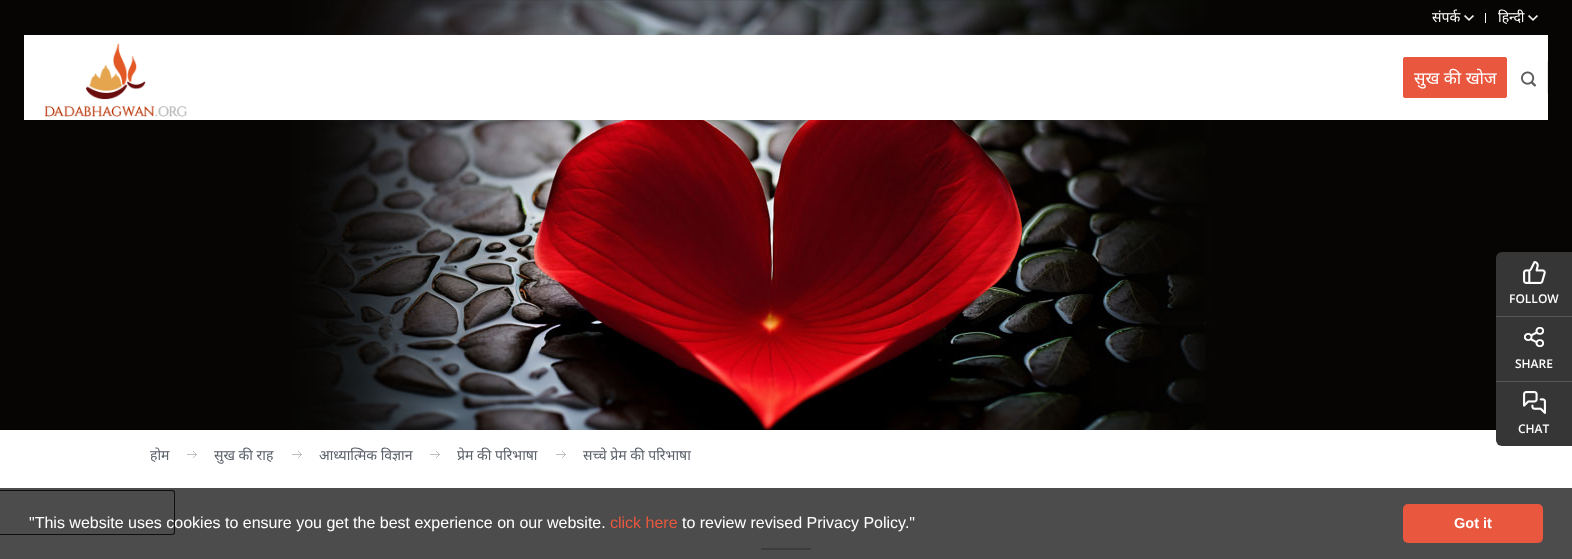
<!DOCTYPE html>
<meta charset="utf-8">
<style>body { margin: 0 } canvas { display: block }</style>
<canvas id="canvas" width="1572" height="559"></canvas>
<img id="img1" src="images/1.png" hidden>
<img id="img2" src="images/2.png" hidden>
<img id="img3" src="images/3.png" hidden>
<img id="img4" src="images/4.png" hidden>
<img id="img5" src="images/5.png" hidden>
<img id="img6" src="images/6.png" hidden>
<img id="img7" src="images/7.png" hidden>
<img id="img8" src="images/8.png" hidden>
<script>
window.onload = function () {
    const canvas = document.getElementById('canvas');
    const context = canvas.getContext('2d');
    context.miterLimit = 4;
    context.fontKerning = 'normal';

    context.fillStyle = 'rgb(255, 255, 255)';
    context.fillRect(0, 0, 1572, 559);
    context.drawImage(document.getElementById('img1'), 0, 0, 1572, 430);
    context.drawImage(document.getElementById('img2'), 1464, 15, 10, 6);
    context.fillRect(1485, 13, 1, 10);
    context.drawImage(document.getElementById('img2'), 1528, 15, 10, 6);
    context.fillRect(24, 35, 1524, 85);
    context.drawImage(document.getElementById('img3'), 44, 43, 143, 74);
    context.fillStyle = 'rgb(233, 87, 62)';
    context.beginPath();
    context.roundRect(1403.5, 57.5, 103, 40, 1.5);
    context.fill();
    context.strokeStyle = 'rgb(233, 87, 62)';
    context.stroke();
    context.fillStyle = 'rgb(231, 231, 231)';
    context.fillRect(1547, 61, 1, 33);
    context.drawImage(document.getElementById('img4'), 1521, 71, 15, 16);
    context.fillStyle = 'rgb(54, 54, 54)';
    context.beginPath();
    context.roundRect(1496, 252, 76, 65, [6, 0, 0, 0]);
    context.fill();
    context.fillStyle = 'rgb(88, 88, 88)';
    context.fillRect(1496, 316, 76, 1);
    context.drawImage(document.getElementById('img5'), 1523, 261, 23, 23);
    context.fillStyle = 'rgb(54, 54, 54)';
    context.fillRect(1496, 317, 76, 64);
    context.drawImage(document.getElementById('img6'), 1524, 327, 20, 20);
    context.beginPath();
    context.roundRect(1496, 381, 76, 65, [0, 0, 0, 6]);
    context.fill();
    context.fillStyle = 'rgb(88, 88, 88)';
    context.fillRect(1496, 381, 76, 1);
    context.drawImage(document.getElementById('img7'), 1523, 391, 23, 23);
    context.drawImage(document.getElementById('img8'), 187, 451, 10, 7);
    context.drawImage(document.getElementById('img8'), 292, 451, 10, 7);
    context.drawImage(document.getElementById('img8'), 430, 451, 10, 7);
    context.drawImage(document.getElementById('img8'), 556, 451, 10, 7);
    context.fillStyle = 'rgb(204, 204, 204)';
    context.fillRect(761, 548, 50, 2);
    context.fillStyle = 'rgb(51, 51, 51)';
    context.beginPath();
    context.moveTo(0, 490);
    context.lineTo(172, 490);
    context.bezierCurveTo(174, 490, 175, 491, 175, 493);
    context.lineTo(175, 532);
    context.bezierCurveTo(175, 534, 174, 535, 172, 535);
    context.lineTo(0, 535);
    context.closePath();
    context.moveTo(0, 491);
    context.lineTo(172, 491);
    context.bezierCurveTo(173, 491, 174, 492, 174, 493);
    context.lineTo(174, 532);
    context.bezierCurveTo(174, 533, 173, 534, 172, 534);
    context.lineTo(0, 534);
    context.closePath();
    context.fill('evenodd');
    context.fillStyle = 'rgba(0, 0, 0, 0.7)';
    context.fillRect(0, 488, 1572, 71);
    context.fillStyle = 'rgb(233, 87, 62)';
    context.beginPath();
    context.roundRect(1403, 504, 140, 39, 5);
    context.fill();
    context.font = '14px Noto Sans';
    context.fillStyle = 'rgb(255, 255, 255)';
    context.fillText('संपर्क', 1432, 22);
    context.fillText('हिन्दी', 1498, 22);
    context.font = '17px Noto Sans';
    context.fillText('सुख की खोज', 1414, 84);
    context.font = '600 12px Open Sans';
    context.fillText('FOLLOW', 1509, 303);
    context.fillText('SHARE', 1515, 368);
    context.fillText('CHAT', 1518, 433);
    context.font = '14px Noto Sans';
    context.fillStyle = 'rgb(91, 96, 106)';
    context.fillText('होम', 150, 460);
    context.fillText('सुख की राह', 214, 460);
    context.fillText('आध्यात्मिक विज्ञान', 319, 460);
    context.fillText('प्रेम की परिभाषा', 457, 460);
    context.fillText('सच्चे प्रेम की परिभाषा', 583, 460);
    context.font = '16px Liberation Sans';
    context.fillStyle = 'rgb(255, 255, 255)';
    context.fillText('"This website uses cookies to ensure you get the best experience on our website.', 29, 528);
    context.fillStyle = 'rgb(233, 87, 62)';
    context.fillText('click here', 610, 528);
    context.fillStyle = 'rgb(255, 255, 255)';
    context.fillText('to review revised Privacy Policy."', 682, 528);
    context.font = 'bold 14.5px Liberation Sans';
    context.fillText('Got it', 1454, 528);
};
</script>
